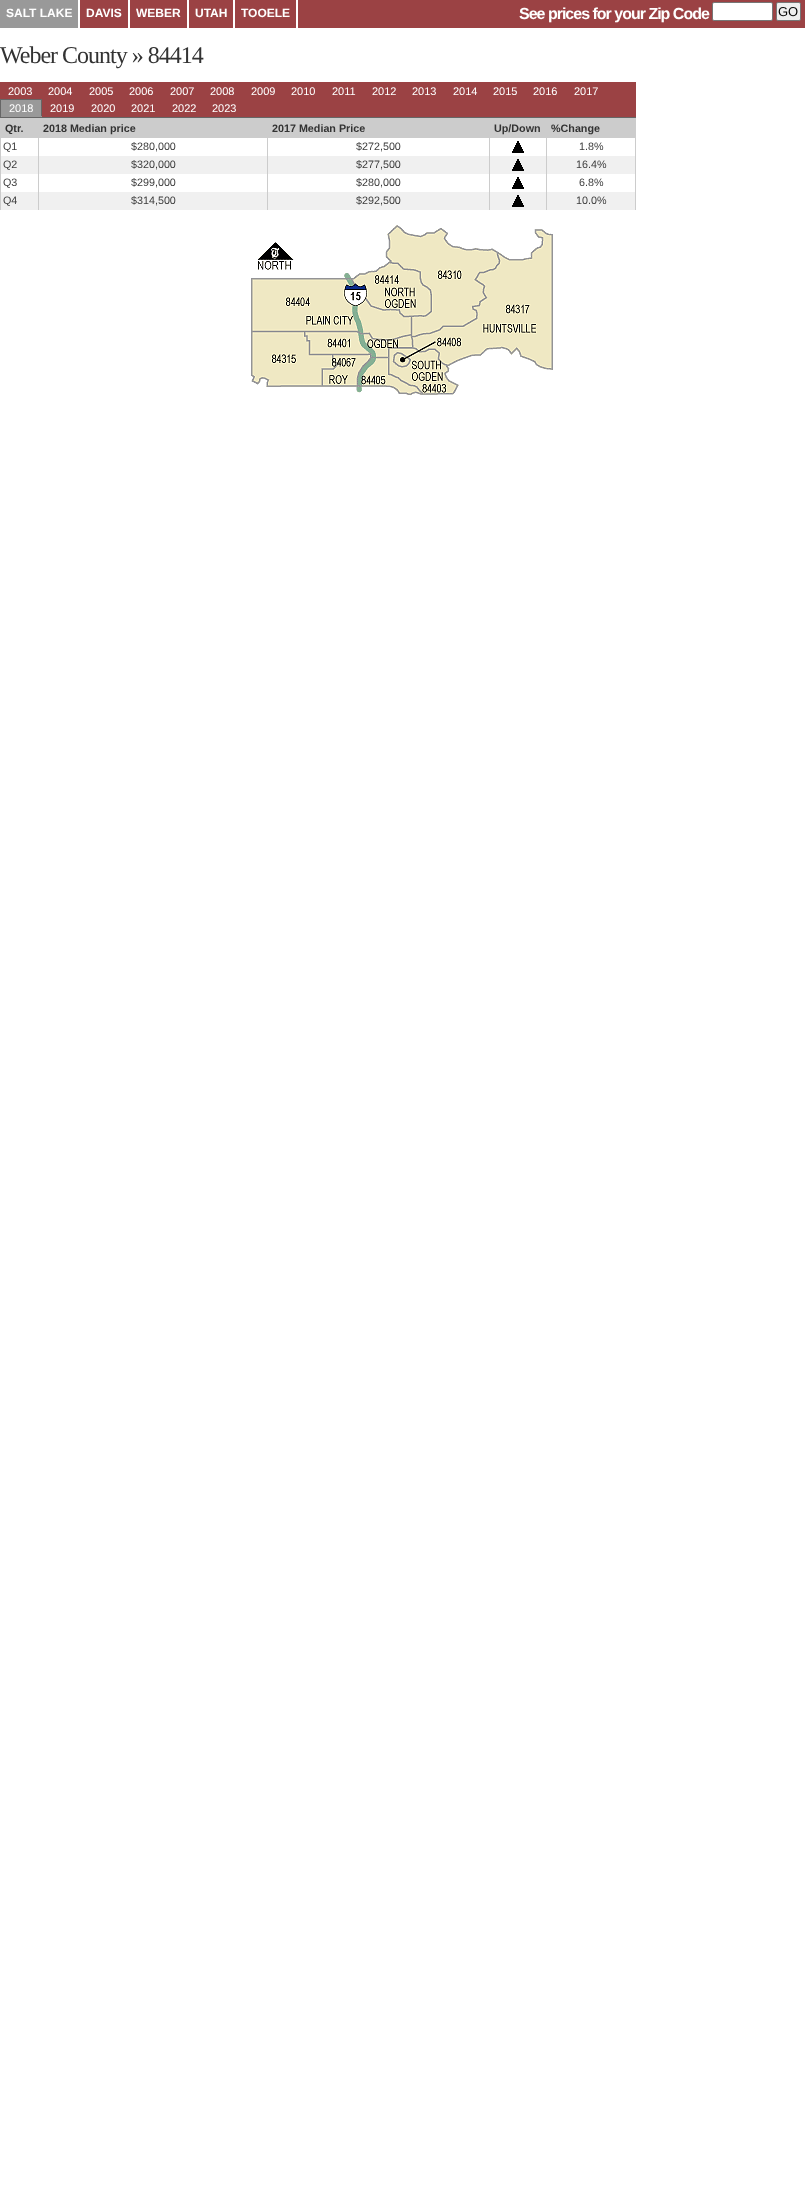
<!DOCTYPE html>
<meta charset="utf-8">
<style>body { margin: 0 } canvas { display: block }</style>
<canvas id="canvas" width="805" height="2206"></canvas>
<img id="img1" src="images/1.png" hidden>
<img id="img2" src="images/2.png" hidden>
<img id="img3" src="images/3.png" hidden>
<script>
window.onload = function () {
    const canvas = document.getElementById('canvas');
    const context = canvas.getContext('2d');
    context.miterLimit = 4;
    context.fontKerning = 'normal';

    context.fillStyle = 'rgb(255, 255, 255)';
    context.fillRect(0, 0, 805, 2206);
    context.fillStyle = 'rgb(155, 66, 68)';
    context.fillRect(80, 0, 725, 28);
    context.fillStyle = 'rgb(153, 153, 153)';
    context.fillRect(0, 0, 78, 28);
    context.fillStyle = 'rgb(255, 255, 255)';
    context.fillRect(128, 0, 2, 28);
    context.fillRect(187, 0, 2, 28);
    context.fillRect(233, 0, 2, 28);
    context.fillRect(296, 0, 2, 28);
    context.beginPath();
    context.roundRect(712.5, 2.5, 60, 18, 1.5);
    context.fill();
    context.strokeStyle = 'rgb(118, 118, 118)';
    context.stroke();
    context.fillStyle = 'rgb(239, 239, 239)';
    context.beginPath();
    context.roundRect(776.5, 2.5, 24, 18, 1.5);
    context.fill();
    context.stroke();
    context.fillStyle = 'rgb(155, 66, 68)';
    context.fillRect(0, 82, 636, 35);
    context.fillStyle = 'rgb(102, 102, 102)';
    context.fillRect(0, 117, 636, 1);
    context.fillStyle = 'rgb(153, 153, 153)';
    context.fillRect(1, 100, 40, 16);
    context.fillStyle = 'rgb(102, 102, 102)';
    context.fillRect(0, 99, 42, 1);
    context.fillRect(41, 99, 1, 18);
    context.fillStyle = 'rgb(153, 153, 153)';
    context.fillRect(0, 116, 42, 1);
    context.fillStyle = 'rgb(102, 102, 102)';
    context.fillRect(0, 99, 1, 18);
    context.fillStyle = 'rgb(204, 204, 204)';
    context.fillRect(0, 118, 1, 92);
    context.fillRect(1, 118, 635, 20);
    context.fillRect(38, 138, 1, 72);
    context.fillRect(267, 138, 1, 72);
    context.fillRect(489, 138, 1, 72);
    context.fillRect(546, 138, 1, 72);
    context.drawImage(document.getElementById('img1'), 512, 141, 12, 12);
    context.fillRect(635, 138, 1, 72);
    context.fillStyle = 'rgb(240, 240, 240)';
    context.fillRect(1, 156, 37, 18);
    context.fillRect(39, 156, 228, 18);
    context.fillRect(268, 156, 221, 18);
    context.fillRect(490, 156, 56, 18);
    context.drawImage(document.getElementById('img2'), 512, 159, 12, 12);
    context.fillRect(547, 156, 88, 18);
    context.drawImage(document.getElementById('img1'), 512, 177, 12, 12);
    context.fillRect(1, 192, 37, 18);
    context.fillRect(39, 192, 228, 18);
    context.fillRect(268, 192, 221, 18);
    context.fillRect(490, 192, 56, 18);
    context.drawImage(document.getElementById('img2'), 512, 195, 12, 12);
    context.fillRect(547, 192, 88, 18);
    context.drawImage(document.getElementById('img3'), 251, 225, 302, 171);
    context.font = 'bold 12px Liberation Sans';
    context.fillStyle = 'rgb(255, 255, 255)';
    context.fillText('SALT LAKE', 6, 17);
    context.fillText('DAVIS', 86, 17);
    context.fillText('WEBER', 136, 17);
    context.fillText('UTAH', 195, 17);
    context.fillText('TOOELE', 241, 17);
    context.letterSpacing = '-1px';
    context.font = 'bold 16px Liberation Sans';
    context.fillText('See prices for your Zip Code', 519, 19);
    context.letterSpacing = '0px';
    context.font = '13px Liberation Sans';
    context.fillStyle = 'rgb(0, 0, 0)';
    context.fillText('GO', 778, 16);
    context.letterSpacing = '-1px';
    context.font = '24px Liberation Serif';
    context.fillStyle = 'rgb(51, 51, 51)';
    context.fillText('Weber County » 84414', 0, 63);
    context.letterSpacing = '0px';
    context.font = '11px Liberation Sans';
    context.fillStyle = 'rgb(255, 255, 255)';
    context.fillText('2003', 8, 95);
    context.fillText('2004', 48, 95);
    context.fillText('2005', 89, 95);
    context.fillText('2006', 129, 95);
    context.fillText('2007', 170, 95);
    context.fillText('2008', 210, 95);
    context.fillText('2009', 251, 95);
    context.fillText('2010', 291, 95);
    context.fillText('2011', 332, 95);
    context.fillText('2012', 372, 95);
    context.fillText('2013', 412, 95);
    context.fillText('2014', 453, 95);
    context.fillText('2015', 493, 95);
    context.fillText('2016', 533, 95);
    context.fillText('2017', 574, 95);
    context.fillText('2018', 9, 112);
    context.fillText('2019', 50, 112);
    context.fillText('2020', 91, 112);
    context.fillText('2021', 131, 112);
    context.fillText('2022', 172, 112);
    context.fillText('2023', 212, 112);
    context.font = 'bold 10.75px Liberation Sans';
    context.fillStyle = 'rgb(51, 51, 51)';
    context.fillText('Qtr.', 5, 132);
    context.fillText('2018 Median price', 43, 132);
    context.fillText('2017 Median Price', 272, 132);
    context.fillText('Up/Down', 494, 132);
    context.fillText('%Change', 551, 132);
    context.font = '10.75px Liberation Sans';
    context.fillStyle = 'rgb(61, 61, 61)';
    context.fillText('Q1', 3, 150);
    context.fillText('$280,000', 131, 150);
    context.fillText('$272,500', 356, 150);
    context.fillText('1.8%', 579, 150);
    context.fillText('Q2', 3, 168);
    context.fillText('$320,000', 131, 168);
    context.fillText('$277,500', 356, 168);
    context.fillText('16.4%', 576, 168);
    context.fillText('Q3', 3, 186);
    context.fillText('$299,000', 131, 186);
    context.fillText('$280,000', 356, 186);
    context.fillText('6.8%', 579, 186);
    context.fillText('Q4', 3, 204);
    context.fillText('$314,500', 131, 204);
    context.fillText('$292,500', 356, 204);
    context.fillText('10.0%', 576, 204);
};
</script>
